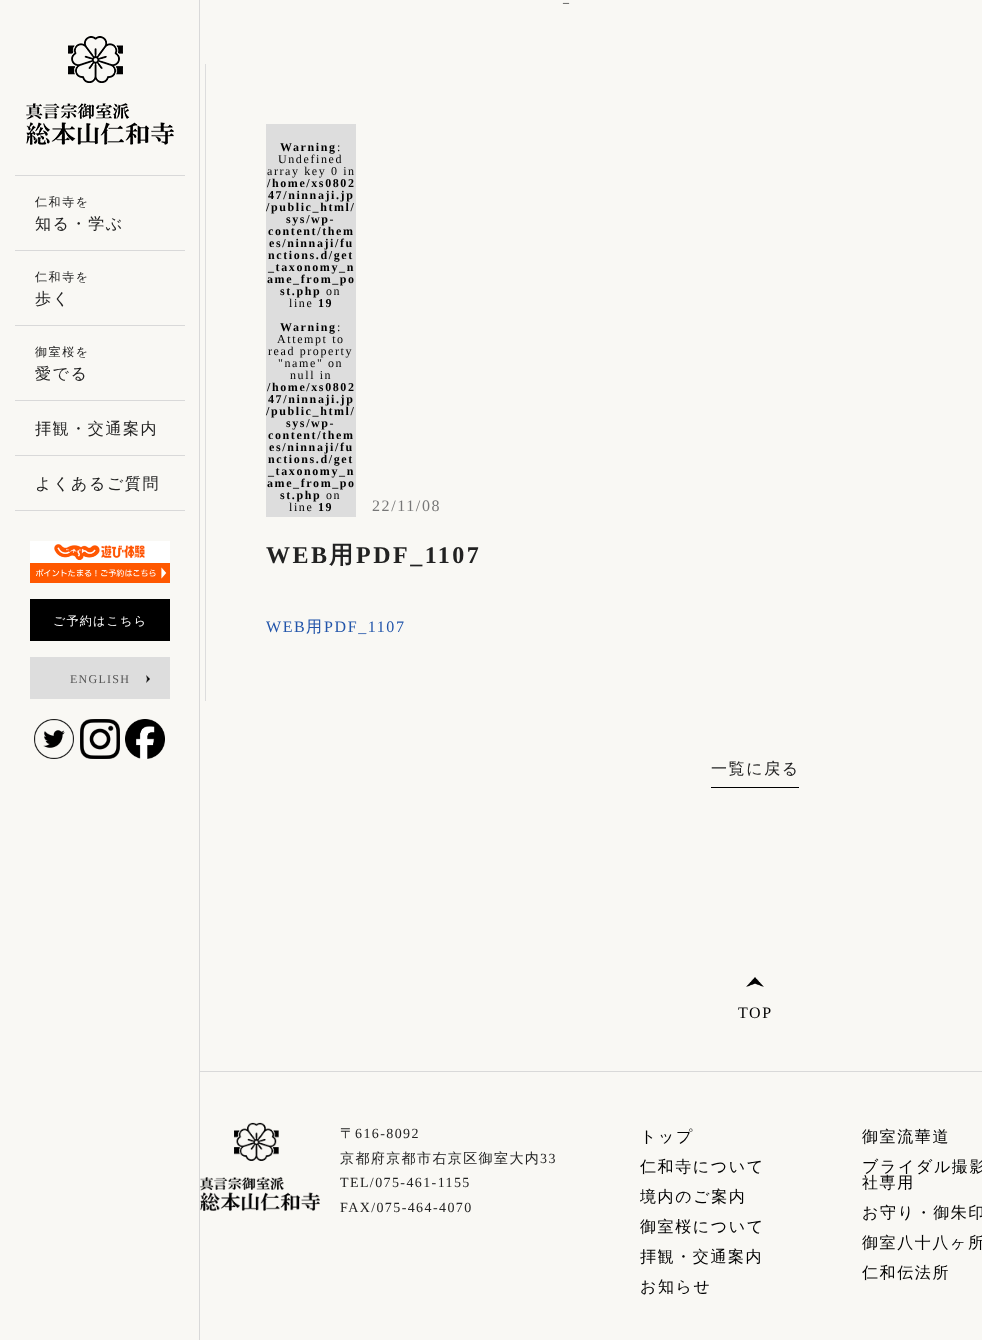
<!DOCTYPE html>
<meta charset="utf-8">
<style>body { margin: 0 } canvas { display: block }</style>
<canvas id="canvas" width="982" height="1340"></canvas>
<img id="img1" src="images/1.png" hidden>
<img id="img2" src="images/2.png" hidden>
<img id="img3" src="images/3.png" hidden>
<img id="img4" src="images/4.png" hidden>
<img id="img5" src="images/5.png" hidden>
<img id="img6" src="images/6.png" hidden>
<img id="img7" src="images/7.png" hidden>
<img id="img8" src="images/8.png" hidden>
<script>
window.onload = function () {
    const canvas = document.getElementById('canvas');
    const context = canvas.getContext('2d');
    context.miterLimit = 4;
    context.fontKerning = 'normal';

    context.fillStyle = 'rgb(249, 248, 244)';
    context.fillRect(0, 0, 982, 1340);
    context.fillStyle = 'rgb(217, 217, 217)';
    context.fillRect(199, 0, 1, 1340);
    context.drawImage(document.getElementById('img1'), 26, 36, 148, 109);
    context.fillRect(15, 175, 170, 1);
    context.fillRect(15, 250, 170, 1);
    context.fillRect(15, 325, 170, 1);
    context.fillRect(15, 400, 170, 1);
    context.fillRect(15, 455, 170, 1);
    context.fillRect(15, 510, 170, 1);
    context.drawImage(document.getElementById('img2'), 30, 541, 140, 42);
    context.fillStyle = 'rgb(0, 0, 0)';
    context.fillRect(30, 599, 140, 42);
    context.fillStyle = 'rgb(221, 221, 221)';
    context.fillRect(30, 657, 140, 42);
    context.drawImage(document.getElementById('img3'), 146, 675, 4, 8);
    context.drawImage(document.getElementById('img4'), 34, 719, 40, 40);
    context.drawImage(document.getElementById('img5'), 80, 719, 40, 40);
    context.drawImage(document.getElementById('img6'), 125, 719, 40, 40);
    context.fillRect(205, 64, 1, 637);
    context.fillRect(266, 124, 90, 393);
    context.fillStyle = 'rgb(0, 0, 0)';
    context.fillRect(711, 787, 88, 1);
    context.drawImage(document.getElementById('img7'), 746, 977, 18, 10);
    context.fillStyle = 'rgb(217, 217, 217)';
    context.fillRect(200, 1071, 782, 1);
    context.drawImage(document.getElementById('img8'), 200, 1122, 120, 89);
    context.letterSpacing = '1.6px';
    context.font = '500 12px WenQuanYi Zen Hei';
    context.fillStyle = 'rgb(34, 34, 34)';
    context.fillText('仁和寺を', 35, 206);
    context.font = '500 16px WenQuanYi Zen Hei';
    context.fillText('知る・学ぶ', 35, 229);
    context.font = '500 12px WenQuanYi Zen Hei';
    context.fillText('仁和寺を', 35, 281);
    context.font = '500 16px WenQuanYi Zen Hei';
    context.fillText('歩く', 35, 304);
    context.font = '500 12px WenQuanYi Zen Hei';
    context.fillText('御室桜を', 35, 356);
    context.font = '500 16px WenQuanYi Zen Hei';
    context.fillText('愛でる', 35, 379);
    context.fillText('拝観・交通案内', 35, 434);
    context.fillText('よくあるご質問', 35, 489);
    context.letterSpacing = '1.25px';
    context.font = '500 12px WenQuanYi Zen Hei';
    context.fillStyle = 'rgb(255, 255, 255)';
    context.fillText('ご予約はこちら', 53, 625);
    context.font = '12px Liberation Serif';
    context.fillStyle = 'rgb(85, 85, 85)';
    context.fillText('ENGLISH', 70, 683);
    context.fillStyle = 'rgb(0, 0, 0)';
    context.fillText('_', 563, 2);
    context.letterSpacing = '1.6px';
    context.font = 'bold 12px Liberation Serif';
    context.fillText('Warning', 280, 151);
    context.font = '12px Liberation Serif';
    context.fillText(':', 337, 151);
    context.fillText('Undefined', 278, 163);
    context.fillText('array key 0 in', 267, 175);
    context.font = 'bold 12px Liberation Serif';
    context.fillText('/home/xs0802', 267, 187);
    context.fillText('47/ninnaji.jp', 268, 199);
    context.fillText('/public_html/', 266, 211);
    context.fillText('sys/wp-', 286, 223);
    context.fillText('content/them', 268, 235);
    context.fillText('es/ninnaji/fu', 269, 247);
    context.fillText('nctions.d/get', 268, 259);
    context.fillText('_taxonomy_n', 268, 271);
    context.fillText('ame_from_po', 267, 283);
    context.fillText('st.php', 280, 295);
    context.font = '12px Liberation Serif';
    context.fillText('on', 326, 295);
    context.fillText('line', 289, 307);
    context.font = 'bold 12px Liberation Serif';
    context.fillText('19', 318, 307);
    context.fillText('Warning', 280, 331);
    context.font = '12px Liberation Serif';
    context.fillText(':', 337, 331);
    context.fillText('Attempt to', 277, 343);
    context.fillText('read property', 268, 355);
    context.fillText('"name" on', 278, 367);
    context.fillText('null in', 290, 379);
    context.font = 'bold 12px Liberation Serif';
    context.fillText('/home/xs0802', 267, 391);
    context.fillText('47/ninnaji.jp', 268, 403);
    context.fillText('/public_html/', 266, 415);
    context.fillText('sys/wp-', 286, 427);
    context.fillText('content/them', 268, 439);
    context.fillText('es/ninnaji/fu', 269, 451);
    context.fillText('nctions.d/get', 268, 463);
    context.fillText('_taxonomy_n', 268, 475);
    context.fillText('ame_from_po', 267, 487);
    context.fillText('st.php', 280, 499);
    context.font = '12px Liberation Serif';
    context.fillText('on', 326, 499);
    context.fillText('line', 289, 511);
    context.font = 'bold 12px Liberation Serif';
    context.fillText('19', 318, 511);
    context.font = '16px Liberation Serif';
    context.fillStyle = 'rgb(119, 119, 119)';
    context.fillText('22/11/08', 372, 511);
    context.letterSpacing = '2.5px';
    context.font = 'bold 24px Liberation Serif';
    context.fillStyle = 'rgb(34, 34, 34)';
    context.fillText('WEB', 266, 563);
    context.font = 'bold 24px WenQuanYi Zen Hei';
    context.fillText('用', 329, 563);
    context.font = 'bold 24px Liberation Serif';
    context.fillText('PDF_1107', 356, 563);
    context.letterSpacing = '1.6px';
    context.font = '16px Liberation Serif';
    context.fillStyle = 'rgb(34, 85, 170)';
    context.fillText('WEB', 266, 632);
    context.font = '500 16px WenQuanYi Zen Hei';
    context.fillText('用', 306, 632);
    context.font = '16px Liberation Serif';
    context.fillText('PDF_1107', 324, 632);
    context.font = '500 16px WenQuanYi Zen Hei';
    context.fillStyle = 'rgb(34, 34, 34)';
    context.fillText('一覧に戻る', 711, 774);
    context.font = '16px Liberation Serif';
    context.fillStyle = 'rgb(0, 0, 0)';
    context.fillText('TOP', 738, 1018);
    context.letterSpacing = '1.4px';
    context.font = '500 14px WenQuanYi Zen Hei';
    context.fillStyle = 'rgb(34, 34, 34)';
    context.fillText('〒', 340, 1138);
    context.font = '14px Liberation Serif';
    context.fillText('616-8092', 355, 1138);
    context.font = '500 14px WenQuanYi Zen Hei';
    context.fillText('京都府京都市右京区御室大内', 340, 1163);
    context.font = '14px Liberation Serif';
    context.fillText('33', 540, 1163);
    context.fillText('TEL/075-461-1155', 340, 1187);
    context.fillText('FAX/075-464-4070', 340, 1212);
    context.letterSpacing = '1.6px';
    context.font = '500 16px WenQuanYi Zen Hei';
    context.fillStyle = 'rgb(0, 0, 0)';
    context.fillText('トップ', 640, 1142);
    context.fillText('仁和寺について', 640, 1172);
    context.fillText('境内のご案内', 640, 1202);
    context.fillText('御室桜について', 640, 1232);
    context.fillText('拝観・交通案内', 640, 1262);
    context.fillText('お知らせ', 640, 1292);
    context.fillText('御室流華道', 862, 1142);
    context.fillText('ブライダル撮影', 862, 1172);
    context.fillText('社専用', 862, 1188);
    context.fillText('お守り・御朱印', 862, 1218);
    context.fillText('御室八十八ヶ所', 862, 1248);
    context.fillText('仁和伝法所', 862, 1278);
};
</script>
